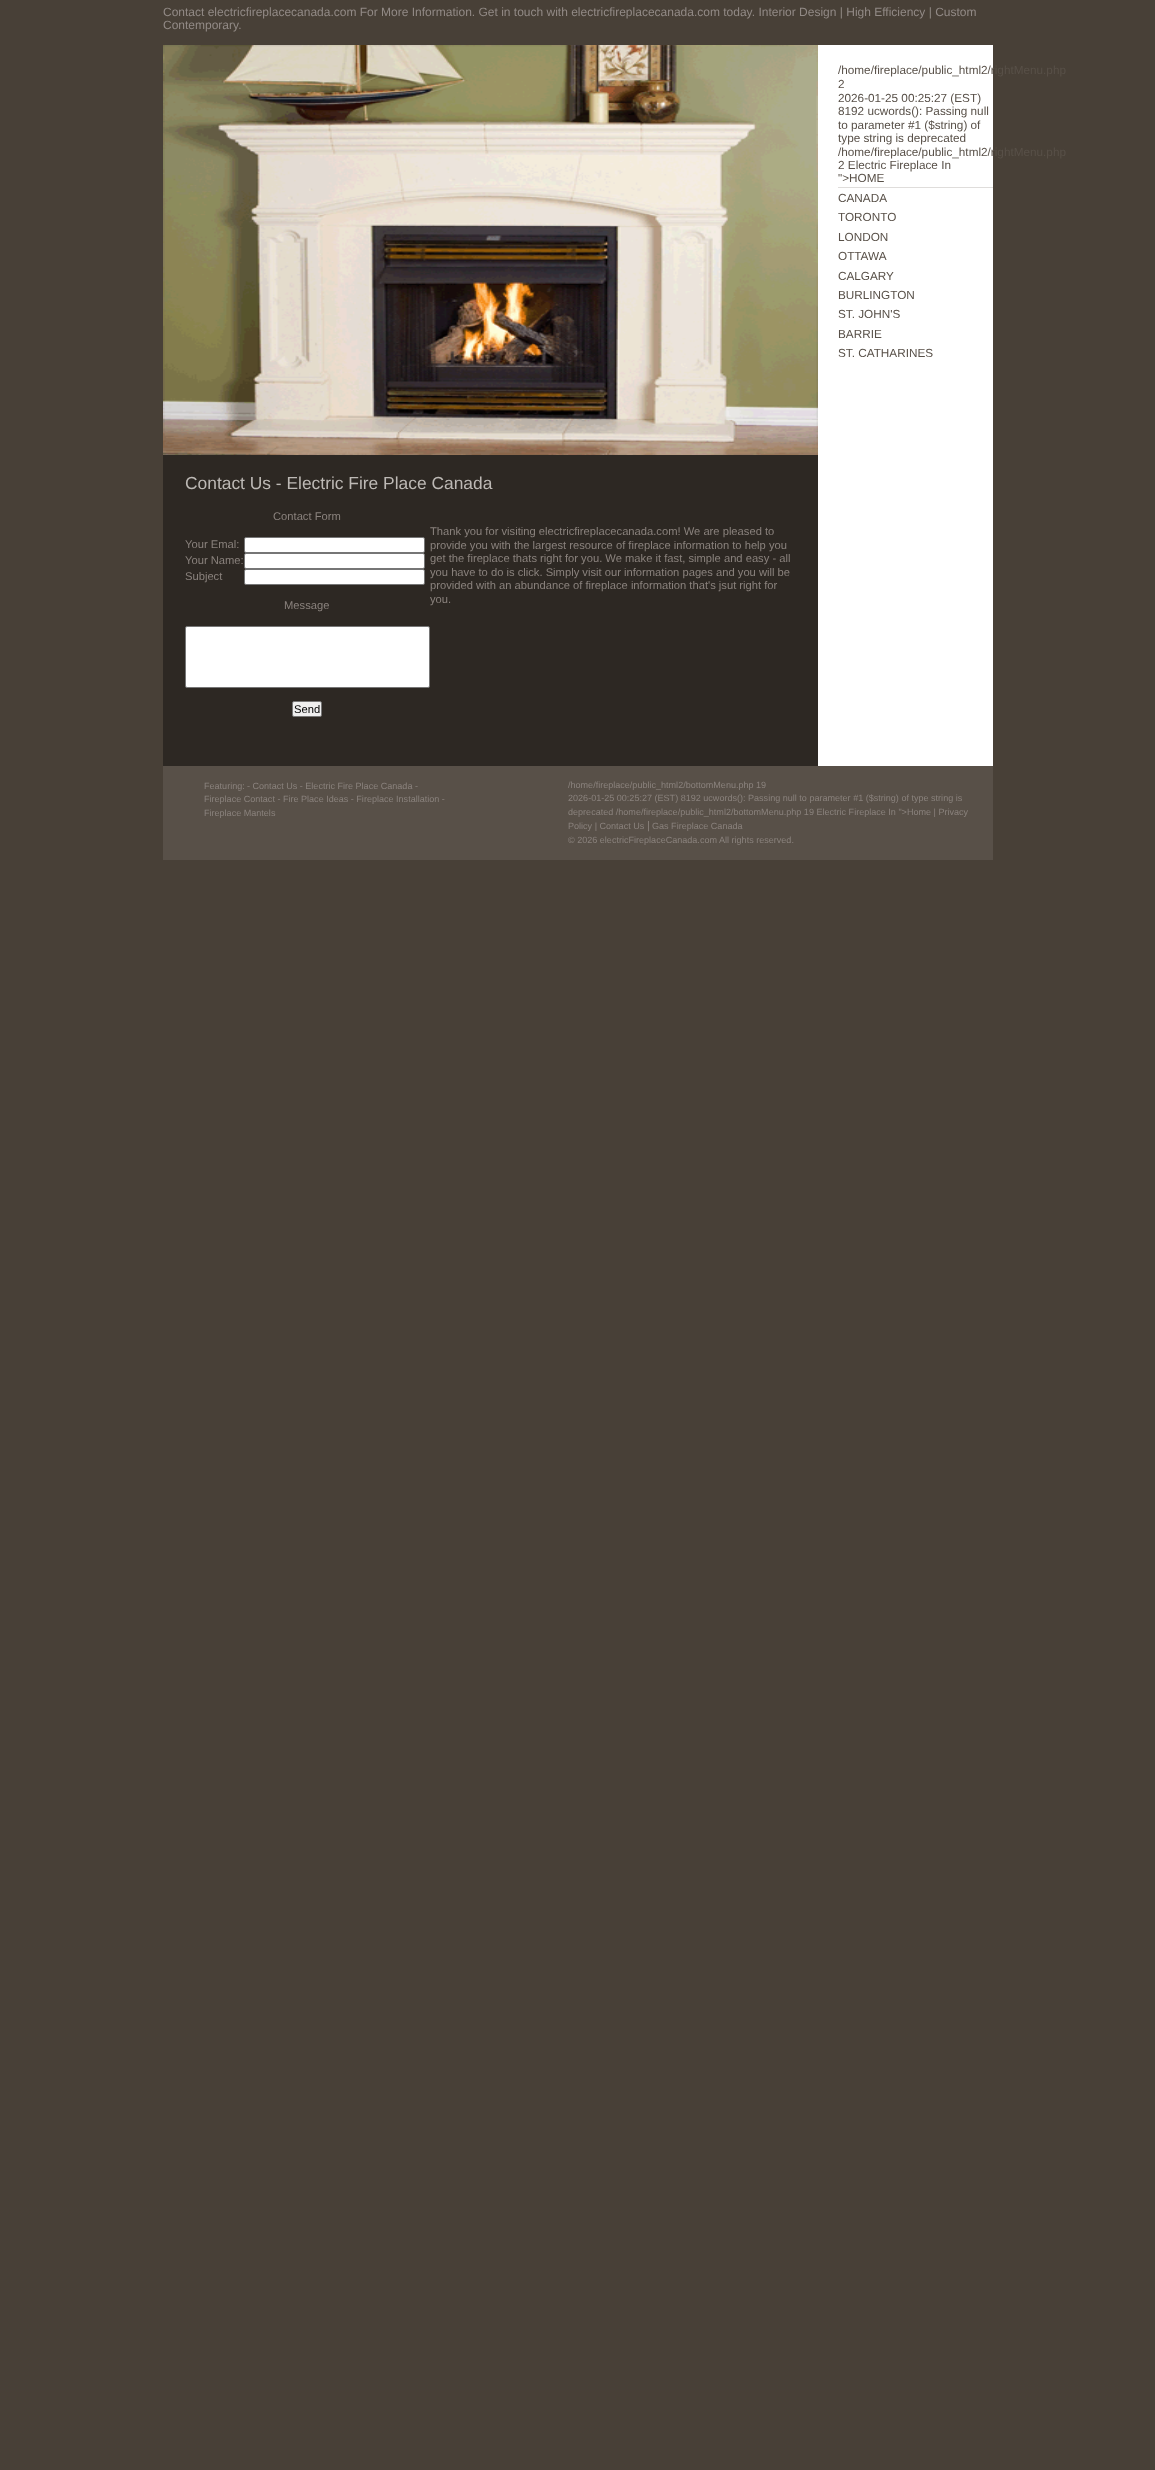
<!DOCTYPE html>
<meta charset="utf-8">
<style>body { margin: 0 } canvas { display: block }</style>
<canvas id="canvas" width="1155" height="2470"></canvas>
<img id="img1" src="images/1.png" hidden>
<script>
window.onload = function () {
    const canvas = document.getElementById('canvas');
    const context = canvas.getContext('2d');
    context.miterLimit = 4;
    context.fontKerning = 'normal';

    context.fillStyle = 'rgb(72, 64, 55)';
    context.fillRect(0, 0, 1155, 2470);
    context.fillStyle = 'rgb(255, 255, 255)';
    context.fillRect(818, 45, 175, 721);
    context.fillStyle = 'rgb(223, 221, 219)';
    context.fillRect(838, 187, 155, 1);
    context.fillStyle = 'rgb(45, 40, 35)';
    context.fillRect(163, 455, 655, 311);
    context.drawImage(document.getElementById('img1'), 163, 45, 655, 410);
    context.fillStyle = 'rgb(255, 255, 255)';
    context.beginPath();
    context.roundRect(244.5, 537.5, 180, 15, 1.5);
    context.fill();
    context.strokeStyle = 'rgb(118, 118, 118)';
    context.stroke();
    context.beginPath();
    context.roundRect(244.5, 553.5, 180, 15, 1.5);
    context.fill();
    context.stroke();
    context.beginPath();
    context.roundRect(244.5, 569.5, 180, 15, 1.5);
    context.fill();
    context.stroke();
    context.beginPath();
    context.roundRect(185.5, 626.5, 244, 61, 1.5);
    context.fill();
    context.stroke();
    context.fillStyle = 'rgb(239, 239, 239)';
    context.beginPath();
    context.roundRect(292.5, 701.5, 29, 15, 1.5);
    context.fill();
    context.stroke();
    context.fillStyle = 'rgb(88, 80, 72)';
    context.fillRect(163, 766, 830, 94);
    context.font = '12px Liberation Sans';
    context.fillStyle = 'rgb(146, 138, 134)';
    context.fillText('Contact electricfireplacecanada.com For More Information. Get in touch with electricfireplacecanada.com today. Interior Design | High Efficiency | Custom', 163, 16);
    context.fillText('Contemporary.', 163, 29);
    context.font = '11.75px Liberation Sans';
    context.fillStyle = 'rgb(88, 80, 72)';
    context.fillText('/home/fireplace/public_html2/rightMenu.php', 838, 74);
    context.fillText('2', 838, 88);
    context.fillText('2026-01-25 00:25:27 (EST)', 838, 102);
    context.fillText('8192 ucwords(): Passing null', 838, 115);
    context.fillText('to parameter #1 ($string) of', 838, 129);
    context.fillText('type string is deprecated', 838, 142);
    context.fillText('/home/fireplace/public_html2/rightMenu.php', 838, 156);
    context.fillText('2 Electric Fireplace In', 838, 169);
    context.fillText('">HOME', 838, 182);
    context.fillText('CANADA', 838, 202);
    context.fillText('TORONTO', 838, 221);
    context.fillText('LONDON', 838, 241);
    context.fillText('OTTAWA', 838, 260);
    context.fillText('CALGARY', 838, 280);
    context.fillText('BURLINGTON', 838, 299);
    context.fillText('ST. JOHN\'S', 838, 318);
    context.fillText('BARRIE', 838, 338);
    context.fillText('ST. CATHARINES', 838, 357);
    context.font = '17.4px Liberation Sans';
    context.fillStyle = 'rgb(189, 185, 181)';
    context.fillText('Contact Us - Electric Fire Place Canada', 185, 489);
    context.font = '11.2px Liberation Sans';
    context.fillStyle = 'rgb(138, 130, 125)';
    context.fillText('Contact Form', 273, 520);
    context.fillText('Your Emal:', 185, 548);
    context.fillText('Your Name:', 185, 564);
    context.fillText('Subject', 185, 580);
    context.fillText('Message', 284, 609);
    context.fillStyle = 'rgb(0, 0, 0)';
    context.fillText('Send', 294, 713);
    context.fillStyle = 'rgb(138, 130, 125)';
    context.fillText('Thank you for visiting electricfireplacecanada.com! We are pleased to', 430, 535);
    context.fillText('provide you with the largest resource of fireplace information to help you', 430, 549);
    context.fillText('get the fireplace thats right for you. We make it fast, simple and easy - all', 430, 562);
    context.fillText('you have to do is click. Simply visit our information pages and you will be', 430, 576);
    context.fillText('provided with an abundance of fireplace information that\'s jsut right for', 430, 589);
    context.fillText('you.', 430, 603);
    context.font = '9.05px Liberation Sans';
    context.fillText('Featuring:', 204, 789);
    context.fillText('- Contact Us - Electric Fire Place Canada -', 247, 789);
    context.fillText('Fireplace Contact - Fire Place Ideas - Fireplace Installation -', 204, 802);
    context.fillText('Fireplace Mantels', 204, 816);
    context.fillText('/home/fireplace/public_html2/bottomMenu.php 19', 568, 788);
    context.fillText('2026-01-25 00:25:27 (EST) 8192 ucwords(): Passing null to parameter #1 ($string) of type string is', 568, 801);
    context.fillText('deprecated /home/fireplace/public_html2/bottomMenu.php 19 Electric Fireplace In ">Home | Privacy', 568, 815);
    context.fillText('Policy | Contact Us', 568, 829);
    context.font = '11px Liberation Sans';
    context.fillText('|', 647, 829);
    context.font = '9.05px Liberation Sans';
    context.fillText('Gas Fireplace Canada', 652, 829);
    context.fillText('© 2026 electricFireplaceCanada.com All rights reserved.', 568, 843);
};
</script>
